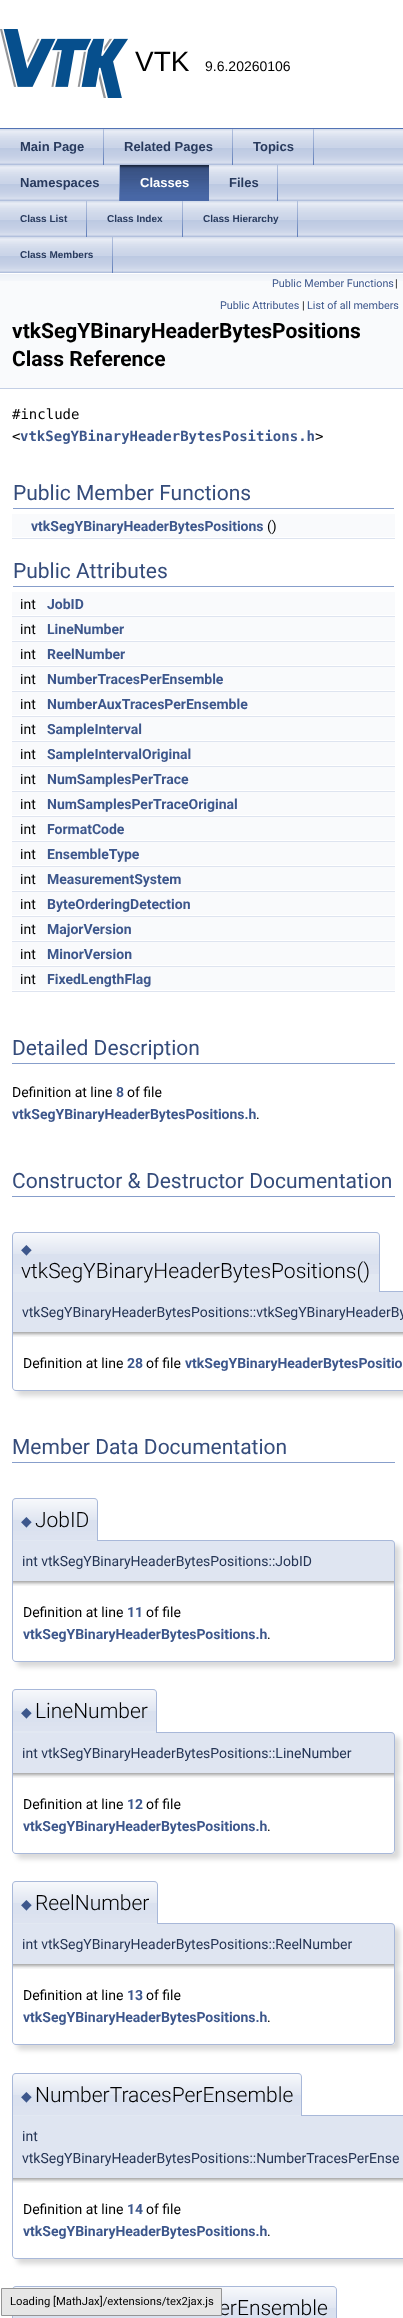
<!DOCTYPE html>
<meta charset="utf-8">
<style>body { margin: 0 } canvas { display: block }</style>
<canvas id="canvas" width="403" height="2318"></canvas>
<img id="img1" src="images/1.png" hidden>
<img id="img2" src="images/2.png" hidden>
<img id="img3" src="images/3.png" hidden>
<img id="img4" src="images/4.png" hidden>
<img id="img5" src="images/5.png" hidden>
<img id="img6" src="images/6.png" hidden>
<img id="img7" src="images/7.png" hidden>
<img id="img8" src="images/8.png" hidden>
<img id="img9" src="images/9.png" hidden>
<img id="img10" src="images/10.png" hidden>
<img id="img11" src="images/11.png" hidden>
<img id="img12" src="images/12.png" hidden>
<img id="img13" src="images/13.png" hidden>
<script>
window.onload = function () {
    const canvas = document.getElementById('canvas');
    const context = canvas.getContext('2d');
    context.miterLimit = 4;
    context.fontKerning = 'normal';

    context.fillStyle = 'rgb(255, 255, 255)';
    context.fillRect(0, 0, 403, 2318);
    context.fillStyle = 'rgb(83, 115, 180)';
    context.fillRect(0, 128, 403, 1);
    context.drawImage(document.getElementById('img1'), 0, 29, 128, 69);
    context.drawImage(document.getElementById('img2'), 0, 129, 403, 72);
    context.drawImage(document.getElementById('img3'), 103, 129, 1, 36);
    context.drawImage(document.getElementById('img3'), 232, 129, 1, 36);
    context.drawImage(document.getElementById('img3'), 313, 129, 1, 36);
    context.drawImage(document.getElementById('img3'), 119, 165, 1, 36);
    context.drawImage(document.getElementById('img4'), 120, 165, 89, 36);
    context.drawImage(document.getElementById('img3'), 277, 165, 1, 36);
    context.drawImage(document.getElementById('img2'), 0, 201, 403, 72);
    context.drawImage(document.getElementById('img3'), 86, 201, 1, 36);
    context.drawImage(document.getElementById('img3'), 182, 201, 1, 36);
    context.drawImage(document.getElementById('img3'), 297, 201, 1, 36);
    context.drawImage(document.getElementById('img3'), 112, 237, 1, 36);
    context.fillStyle = 'rgb(249, 250, 252)';
    context.fillRect(0, 281, 403, 107);
    context.drawImage(document.getElementById('img5'), 0, 273, 403, 8);
    context.fillStyle = 'rgb(196, 207, 229)';
    context.fillRect(0, 388, 403, 1);
    context.fillStyle = 'rgb(135, 158, 203)';
    context.fillRect(13, 508, 381, 1);
    context.fillStyle = 'rgb(249, 250, 252)';
    context.fillRect(12, 514, 383, 23);
    context.fillStyle = 'rgb(222, 228, 240)';
    context.fillRect(12, 538, 383, 1);
    context.fillStyle = 'rgb(135, 158, 203)';
    context.fillRect(13, 586, 381, 1);
    context.fillStyle = 'rgb(249, 250, 252)';
    context.fillRect(12, 592, 383, 23);
    context.fillStyle = 'rgb(222, 228, 240)';
    context.fillRect(12, 616, 383, 1);
    context.fillStyle = 'rgb(249, 250, 252)';
    context.fillRect(12, 617, 383, 23);
    context.fillStyle = 'rgb(222, 228, 240)';
    context.fillRect(12, 641, 383, 1);
    context.fillStyle = 'rgb(249, 250, 252)';
    context.fillRect(12, 642, 383, 23);
    context.fillStyle = 'rgb(222, 228, 240)';
    context.fillRect(12, 666, 383, 1);
    context.fillStyle = 'rgb(249, 250, 252)';
    context.fillRect(12, 667, 383, 23);
    context.fillStyle = 'rgb(222, 228, 240)';
    context.fillRect(12, 691, 383, 1);
    context.fillStyle = 'rgb(249, 250, 252)';
    context.fillRect(12, 692, 383, 23);
    context.fillStyle = 'rgb(222, 228, 240)';
    context.fillRect(12, 716, 383, 1);
    context.fillStyle = 'rgb(249, 250, 252)';
    context.fillRect(12, 717, 383, 23);
    context.fillStyle = 'rgb(222, 228, 240)';
    context.fillRect(12, 741, 383, 1);
    context.fillStyle = 'rgb(249, 250, 252)';
    context.fillRect(12, 742, 383, 23);
    context.fillStyle = 'rgb(222, 228, 240)';
    context.fillRect(12, 766, 383, 1);
    context.fillStyle = 'rgb(249, 250, 252)';
    context.fillRect(12, 767, 383, 23);
    context.fillStyle = 'rgb(222, 228, 240)';
    context.fillRect(12, 791, 383, 1);
    context.fillStyle = 'rgb(249, 250, 252)';
    context.fillRect(12, 792, 383, 23);
    context.fillStyle = 'rgb(222, 228, 240)';
    context.fillRect(12, 816, 383, 1);
    context.fillStyle = 'rgb(249, 250, 252)';
    context.fillRect(12, 817, 383, 23);
    context.fillStyle = 'rgb(222, 228, 240)';
    context.fillRect(12, 841, 383, 1);
    context.fillStyle = 'rgb(249, 250, 252)';
    context.fillRect(12, 842, 383, 23);
    context.fillStyle = 'rgb(222, 228, 240)';
    context.fillRect(12, 866, 383, 1);
    context.fillStyle = 'rgb(249, 250, 252)';
    context.fillRect(12, 867, 383, 23);
    context.fillStyle = 'rgb(222, 228, 240)';
    context.fillRect(12, 891, 383, 1);
    context.fillStyle = 'rgb(249, 250, 252)';
    context.fillRect(12, 892, 383, 23);
    context.fillStyle = 'rgb(222, 228, 240)';
    context.fillRect(12, 916, 383, 1);
    context.fillStyle = 'rgb(249, 250, 252)';
    context.fillRect(12, 917, 383, 23);
    context.fillStyle = 'rgb(222, 228, 240)';
    context.fillRect(12, 941, 383, 1);
    context.fillStyle = 'rgb(249, 250, 252)';
    context.fillRect(12, 942, 383, 23);
    context.fillStyle = 'rgb(222, 228, 240)';
    context.fillRect(12, 966, 383, 1);
    context.fillStyle = 'rgb(249, 250, 252)';
    context.fillRect(12, 967, 383, 23);
    context.fillStyle = 'rgb(222, 228, 240)';
    context.fillRect(12, 991, 383, 1);
    context.fillStyle = 'rgb(135, 158, 203)';
    context.fillRect(12, 1063, 383, 1);
    context.fillRect(12, 1196, 383, 1);
    context.fillStyle = 'rgb(223, 229, 241)';
    context.fillRect(13, 1292, 390, 40);
    context.fillStyle = 'rgb(168, 184, 217)';
    context.beginPath();
    context.moveTo(12, 1291);
    context.lineTo(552, 1291);
    context.bezierCurveTo(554, 1291, 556, 1293, 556, 1295);
    context.lineTo(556, 1332);
    context.lineTo(12, 1332);
    context.closePath();
    context.moveTo(13, 1292);
    context.lineTo(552, 1292);
    context.bezierCurveTo(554, 1292, 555, 1293, 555, 1295);
    context.lineTo(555, 1332);
    context.lineTo(13, 1332);
    context.closePath();
    context.fill('evenodd');
    context.fillStyle = 'rgb(226, 232, 242)';
    context.beginPath();
    context.roundRect(12, 1232, 368, 60, [4, 4, 0, 0]);
    context.fill();
    context.drawImage(document.getElementById('img6'), 12, 1233, 368, 41);
    context.fillStyle = 'rgb(168, 184, 217)';
    context.beginPath();
    context.moveTo(16, 1232);
    context.lineTo(376, 1232);
    context.bezierCurveTo(378, 1232, 380, 1234, 380, 1236);
    context.lineTo(380, 1292);
    context.lineTo(12, 1292);
    context.lineTo(12, 1236);
    context.bezierCurveTo(12, 1234, 14, 1232, 16, 1232);
    context.closePath();
    context.moveTo(16, 1233);
    context.lineTo(376, 1233);
    context.bezierCurveTo(378, 1233, 379, 1234, 379, 1236);
    context.lineTo(379, 1292);
    context.lineTo(13, 1292);
    context.lineTo(13, 1236);
    context.bezierCurveTo(13, 1234, 14, 1233, 16, 1233);
    context.closePath();
    context.fill('evenodd');
    context.fillStyle = 'rgba(0, 0, 0, 0.15)';
    context.filter = 'blur(2.5px)';
    context.beginPath();
    context.roundRect(17, 1337, 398, 59, 4);
    context.fill();
    context.filter = 'none';
    context.fillStyle = 'rgb(255, 255, 255)';
    context.beginPath();
    context.roundRect(12, 1332, 391, 59, [0, 0, 0, 4]);
    context.fill();
    context.drawImage(document.getElementById('img7'), 13, 1332, 390, 5);
    context.fillStyle = 'rgb(168, 184, 217)';
    context.beginPath();
    context.moveTo(12, 1332);
    context.lineTo(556, 1332);
    context.lineTo(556, 1387);
    context.bezierCurveTo(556, 1389, 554, 1391, 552, 1391);
    context.lineTo(16, 1391);
    context.bezierCurveTo(14, 1391, 12, 1389, 12, 1387);
    context.closePath();
    context.moveTo(13, 1332);
    context.lineTo(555, 1332);
    context.lineTo(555, 1387);
    context.bezierCurveTo(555, 1389, 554, 1390, 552, 1390);
    context.lineTo(16, 1390);
    context.bezierCurveTo(14, 1390, 13, 1389, 13, 1387);
    context.closePath();
    context.fill('evenodd');
    context.fillStyle = 'rgb(135, 158, 203)';
    context.fillRect(12, 1462, 383, 1);
    context.fillStyle = 'rgba(0, 0, 0, 0.15)';
    context.filter = 'blur(2.5px)';
    context.beginPath();
    context.roundRect(17, 1545, 383, 41, 4);
    context.fill();
    context.filter = 'none';
    context.fillStyle = 'rgb(223, 229, 241)';
    context.beginPath();
    context.roundRect(12, 1540, 383, 41, [0, 4, 0, 0]);
    context.fill();
    context.fillStyle = 'rgb(168, 184, 217)';
    context.beginPath();
    context.moveTo(12, 1540);
    context.lineTo(391, 1540);
    context.bezierCurveTo(393, 1540, 395, 1542, 395, 1544);
    context.lineTo(395, 1581);
    context.lineTo(12, 1581);
    context.closePath();
    context.moveTo(13, 1541);
    context.lineTo(391, 1541);
    context.bezierCurveTo(393, 1541, 394, 1542, 394, 1544);
    context.lineTo(394, 1581);
    context.lineTo(13, 1581);
    context.closePath();
    context.fill('evenodd');
    context.fillStyle = 'rgb(226, 232, 242)';
    context.beginPath();
    context.roundRect(12, 1498, 86, 43, [4, 4, 0, 0]);
    context.fill();
    context.drawImage(document.getElementById('img8'), 12, 1499, 86, 41);
    context.fillStyle = 'rgb(168, 184, 217)';
    context.beginPath();
    context.moveTo(16, 1498);
    context.lineTo(94, 1498);
    context.bezierCurveTo(96, 1498, 98, 1500, 98, 1502);
    context.lineTo(98, 1541);
    context.lineTo(12, 1541);
    context.lineTo(12, 1502);
    context.bezierCurveTo(12, 1500, 14, 1498, 16, 1498);
    context.closePath();
    context.moveTo(16, 1499);
    context.lineTo(94, 1499);
    context.bezierCurveTo(96, 1499, 97, 1500, 97, 1502);
    context.lineTo(97, 1541);
    context.lineTo(13, 1541);
    context.lineTo(13, 1502);
    context.bezierCurveTo(13, 1500, 14, 1499, 16, 1499);
    context.closePath();
    context.fill('evenodd');
    context.fillStyle = 'rgba(0, 0, 0, 0.15)';
    context.filter = 'blur(2.5px)';
    context.beginPath();
    context.roundRect(17, 1586, 383, 81, 4);
    context.fill();
    context.filter = 'none';
    context.fillStyle = 'rgb(255, 255, 255)';
    context.beginPath();
    context.roundRect(12, 1581, 383, 81, [0, 0, 4, 4]);
    context.fill();
    context.drawImage(document.getElementById('img9'), 13, 1581, 381, 5);
    context.fillStyle = 'rgb(168, 184, 217)';
    context.beginPath();
    context.moveTo(12, 1581);
    context.lineTo(395, 1581);
    context.lineTo(395, 1658);
    context.bezierCurveTo(395, 1660, 393, 1662, 391, 1662);
    context.lineTo(16, 1662);
    context.bezierCurveTo(14, 1662, 12, 1660, 12, 1658);
    context.closePath();
    context.moveTo(13, 1581);
    context.lineTo(394, 1581);
    context.lineTo(394, 1658);
    context.bezierCurveTo(394, 1660, 393, 1661, 391, 1661);
    context.lineTo(16, 1661);
    context.bezierCurveTo(14, 1661, 13, 1660, 13, 1658);
    context.closePath();
    context.fill('evenodd');
    context.fillStyle = 'rgba(0, 0, 0, 0.15)';
    context.filter = 'blur(2.5px)';
    context.beginPath();
    context.roundRect(17, 1737, 383, 41, 4);
    context.fill();
    context.filter = 'none';
    context.fillStyle = 'rgb(223, 229, 241)';
    context.beginPath();
    context.roundRect(12, 1732, 383, 41, [0, 4, 0, 0]);
    context.fill();
    context.fillStyle = 'rgb(168, 184, 217)';
    context.beginPath();
    context.moveTo(12, 1732);
    context.lineTo(391, 1732);
    context.bezierCurveTo(393, 1732, 395, 1734, 395, 1736);
    context.lineTo(395, 1773);
    context.lineTo(12, 1773);
    context.closePath();
    context.moveTo(13, 1733);
    context.lineTo(391, 1733);
    context.bezierCurveTo(393, 1733, 394, 1734, 394, 1736);
    context.lineTo(394, 1773);
    context.lineTo(13, 1773);
    context.closePath();
    context.fill('evenodd');
    context.fillStyle = 'rgb(226, 232, 242)';
    context.beginPath();
    context.roundRect(12, 1689, 145, 44, [4, 4, 0, 0]);
    context.fill();
    context.drawImage(document.getElementById('img10'), 12, 1690, 145, 41);
    context.fillStyle = 'rgb(168, 184, 217)';
    context.beginPath();
    context.moveTo(16, 1689);
    context.lineTo(153, 1689);
    context.bezierCurveTo(155, 1689, 157, 1691, 157, 1693);
    context.lineTo(157, 1733);
    context.lineTo(12, 1733);
    context.lineTo(12, 1693);
    context.bezierCurveTo(12, 1691, 14, 1689, 16, 1689);
    context.closePath();
    context.moveTo(16, 1690);
    context.lineTo(153, 1690);
    context.bezierCurveTo(155, 1690, 156, 1691, 156, 1693);
    context.lineTo(156, 1733);
    context.lineTo(13, 1733);
    context.lineTo(13, 1693);
    context.bezierCurveTo(13, 1691, 14, 1690, 16, 1690);
    context.closePath();
    context.fill('evenodd');
    context.fillStyle = 'rgba(0, 0, 0, 0.15)';
    context.filter = 'blur(2.5px)';
    context.beginPath();
    context.roundRect(17, 1778, 383, 81, 4);
    context.fill();
    context.filter = 'none';
    context.fillStyle = 'rgb(255, 255, 255)';
    context.beginPath();
    context.roundRect(12, 1773, 383, 81, [0, 0, 4, 4]);
    context.fill();
    context.drawImage(document.getElementById('img9'), 13, 1773, 381, 5);
    context.fillStyle = 'rgb(168, 184, 217)';
    context.beginPath();
    context.moveTo(12, 1773);
    context.lineTo(395, 1773);
    context.lineTo(395, 1850);
    context.bezierCurveTo(395, 1852, 393, 1854, 391, 1854);
    context.lineTo(16, 1854);
    context.bezierCurveTo(14, 1854, 12, 1852, 12, 1850);
    context.closePath();
    context.moveTo(13, 1773);
    context.lineTo(394, 1773);
    context.lineTo(394, 1850);
    context.bezierCurveTo(394, 1852, 393, 1853, 391, 1853);
    context.lineTo(16, 1853);
    context.bezierCurveTo(14, 1853, 13, 1852, 13, 1850);
    context.closePath();
    context.fill('evenodd');
    context.fillStyle = 'rgba(0, 0, 0, 0.15)';
    context.filter = 'blur(2.5px)';
    context.beginPath();
    context.roundRect(17, 1928, 383, 41, 4);
    context.fill();
    context.filter = 'none';
    context.fillStyle = 'rgb(223, 229, 241)';
    context.beginPath();
    context.roundRect(12, 1923, 383, 41, [0, 4, 0, 0]);
    context.fill();
    context.fillStyle = 'rgb(168, 184, 217)';
    context.beginPath();
    context.moveTo(12, 1923);
    context.lineTo(391, 1923);
    context.bezierCurveTo(393, 1923, 395, 1925, 395, 1927);
    context.lineTo(395, 1964);
    context.lineTo(12, 1964);
    context.closePath();
    context.moveTo(13, 1924);
    context.lineTo(391, 1924);
    context.bezierCurveTo(393, 1924, 394, 1925, 394, 1927);
    context.lineTo(394, 1964);
    context.lineTo(13, 1964);
    context.closePath();
    context.fill('evenodd');
    context.fillStyle = 'rgb(226, 232, 242)';
    context.beginPath();
    context.roundRect(12, 1881, 146, 43, [4, 4, 0, 0]);
    context.fill();
    context.drawImage(document.getElementById('img11'), 12, 1882, 146, 41);
    context.fillStyle = 'rgb(168, 184, 217)';
    context.beginPath();
    context.moveTo(16, 1881);
    context.lineTo(154, 1881);
    context.bezierCurveTo(156, 1881, 158, 1883, 158, 1885);
    context.lineTo(158, 1924);
    context.lineTo(12, 1924);
    context.lineTo(12, 1885);
    context.bezierCurveTo(12, 1883, 14, 1881, 16, 1881);
    context.closePath();
    context.moveTo(16, 1882);
    context.lineTo(154, 1882);
    context.bezierCurveTo(156, 1882, 157, 1883, 157, 1885);
    context.lineTo(157, 1924);
    context.lineTo(13, 1924);
    context.lineTo(13, 1885);
    context.bezierCurveTo(13, 1883, 14, 1882, 16, 1882);
    context.closePath();
    context.fill('evenodd');
    context.fillStyle = 'rgba(0, 0, 0, 0.15)';
    context.filter = 'blur(2.5px)';
    context.beginPath();
    context.roundRect(17, 1969, 383, 81, 4);
    context.fill();
    context.filter = 'none';
    context.fillStyle = 'rgb(255, 255, 255)';
    context.beginPath();
    context.roundRect(12, 1964, 383, 81, [0, 0, 4, 4]);
    context.fill();
    context.drawImage(document.getElementById('img9'), 13, 1964, 381, 5);
    context.fillStyle = 'rgb(168, 184, 217)';
    context.beginPath();
    context.moveTo(12, 1964);
    context.lineTo(395, 1964);
    context.lineTo(395, 2041);
    context.bezierCurveTo(395, 2043, 393, 2045, 391, 2045);
    context.lineTo(16, 2045);
    context.bezierCurveTo(14, 2045, 12, 2043, 12, 2041);
    context.closePath();
    context.moveTo(13, 1964);
    context.lineTo(394, 1964);
    context.lineTo(394, 2041);
    context.bezierCurveTo(394, 2043, 393, 2044, 391, 2044);
    context.lineTo(16, 2044);
    context.bezierCurveTo(14, 2044, 13, 2043, 13, 2041);
    context.closePath();
    context.fill('evenodd');
    context.fillStyle = 'rgb(223, 229, 241)';
    context.fillRect(13, 2116, 390, 62);
    context.fillStyle = 'rgb(168, 184, 217)';
    context.beginPath();
    context.moveTo(12, 2115);
    context.lineTo(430, 2115);
    context.bezierCurveTo(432, 2115, 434, 2117, 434, 2119);
    context.lineTo(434, 2178);
    context.lineTo(12, 2178);
    context.closePath();
    context.moveTo(13, 2116);
    context.lineTo(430, 2116);
    context.bezierCurveTo(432, 2116, 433, 2117, 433, 2119);
    context.lineTo(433, 2178);
    context.lineTo(13, 2178);
    context.closePath();
    context.fill('evenodd');
    context.fillStyle = 'rgb(226, 232, 242)';
    context.beginPath();
    context.roundRect(12, 2073, 290, 43, [4, 4, 0, 0]);
    context.fill();
    context.drawImage(document.getElementById('img12'), 12, 2074, 290, 41);
    context.fillStyle = 'rgb(168, 184, 217)';
    context.beginPath();
    context.moveTo(16, 2073);
    context.lineTo(298, 2073);
    context.bezierCurveTo(300, 2073, 302, 2075, 302, 2077);
    context.lineTo(302, 2116);
    context.lineTo(12, 2116);
    context.lineTo(12, 2077);
    context.bezierCurveTo(12, 2075, 14, 2073, 16, 2073);
    context.closePath();
    context.moveTo(16, 2074);
    context.lineTo(298, 2074);
    context.bezierCurveTo(300, 2074, 301, 2075, 301, 2077);
    context.lineTo(301, 2116);
    context.lineTo(13, 2116);
    context.lineTo(13, 2077);
    context.bezierCurveTo(13, 2075, 14, 2074, 16, 2074);
    context.closePath();
    context.fill('evenodd');
    context.fillStyle = 'rgba(0, 0, 0, 0.15)';
    context.filter = 'blur(2.5px)';
    context.beginPath();
    context.roundRect(17, 2183, 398, 81, 4);
    context.fill();
    context.filter = 'none';
    context.fillStyle = 'rgb(255, 255, 255)';
    context.beginPath();
    context.roundRect(12, 2178, 391, 81, [0, 0, 0, 4]);
    context.fill();
    context.drawImage(document.getElementById('img7'), 13, 2178, 390, 5);
    context.fillStyle = 'rgb(168, 184, 217)';
    context.beginPath();
    context.moveTo(12, 2178);
    context.lineTo(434, 2178);
    context.lineTo(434, 2255);
    context.bezierCurveTo(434, 2257, 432, 2259, 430, 2259);
    context.lineTo(16, 2259);
    context.bezierCurveTo(14, 2259, 12, 2257, 12, 2255);
    context.closePath();
    context.moveTo(13, 2178);
    context.lineTo(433, 2178);
    context.lineTo(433, 2255);
    context.bezierCurveTo(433, 2257, 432, 2258, 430, 2258);
    context.lineTo(16, 2258);
    context.bezierCurveTo(14, 2258, 13, 2257, 13, 2255);
    context.closePath();
    context.fill('evenodd');
    context.drawImage(document.getElementById('img13'), 12, 2287, 325, 31);
    context.beginPath();
    context.moveTo(16, 2286);
    context.lineTo(333, 2286);
    context.bezierCurveTo(335, 2286, 337, 2288, 337, 2290);
    context.lineTo(337, 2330);
    context.lineTo(12, 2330);
    context.lineTo(12, 2290);
    context.bezierCurveTo(12, 2288, 14, 2286, 16, 2286);
    context.closePath();
    context.moveTo(16, 2287);
    context.lineTo(333, 2287);
    context.bezierCurveTo(335, 2287, 336, 2288, 336, 2290);
    context.lineTo(336, 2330);
    context.lineTo(13, 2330);
    context.lineTo(13, 2290);
    context.bezierCurveTo(13, 2288, 14, 2287, 16, 2287);
    context.closePath();
    context.fill('evenodd');
    context.font = '28px Liberation Sans';
    context.fillStyle = 'rgb(0, 0, 0)';
    context.fillText('VTK', 135, 71);
    context.font = '14px Liberation Sans';
    context.fillText('9.6.20260106', 205, 71);
    context.font = 'bold 13px Liberation Sans';
    context.fillStyle = 'rgb(40, 58, 93)';
    context.fillText('Main Page', 20, 151);
    context.fillText('Related Pages', 124, 151);
    context.fillText('Topics', 253, 151);
    context.fillText('Namespaces', 20, 187);
    context.fillStyle = 'rgb(255, 255, 255)';
    context.fillText('Classes', 140, 187);
    context.fillStyle = 'rgb(40, 58, 93)';
    context.fillText('Files', 229, 187);
    context.font = 'bold 10px Liberation Sans';
    context.fillText('Class List', 20, 222);
    context.fillText('Class Index', 107, 222);
    context.fillText('Class Hierarchy', 203, 222);
    context.fillText('Class Members', 20, 258);
    context.font = '10.75px Roboto';
    context.fillStyle = 'rgb(61, 87, 140)';
    context.fillText('Public Member Functions', 272, 287);
    context.fillStyle = 'rgb(0, 0, 0)';
    context.fillText('|', 395, 287);
    context.fillStyle = 'rgb(61, 87, 140)';
    context.fillText('Public Attributes', 220, 309);
    context.fillStyle = 'rgb(0, 0, 0)';
    context.fillText('|', 302, 309);
    context.fillStyle = 'rgb(61, 87, 140)';
    context.fillText('List of all members', 307, 309);
    context.font = 'bold 21px Roboto';
    context.fillStyle = 'rgb(0, 0, 0)';
    context.fillText('vtkSegYBinaryHeaderBytesPositions', 12, 338);
    context.fillText('Class Reference', 12, 366);
    context.font = '14px DejaVu Sans Mono';
    context.fillText('#include', 12, 419);
    context.fillText('<', 12, 441);
    context.font = 'bold 14px DejaVu Sans Mono';
    context.fillStyle = 'rgb(61, 87, 140)';
    context.fillText('vtkSegYBinaryHeaderBytesPositions.h', 20, 441);
    context.font = '14px DejaVu Sans Mono';
    context.fillStyle = 'rgb(0, 0, 0)';
    context.fillText('>', 315, 441);
    context.font = '21px Roboto';
    context.fillStyle = 'rgb(53, 76, 123)';
    context.fillText('Public Member Functions', 13, 500);
    context.font = 'bold 14px Roboto';
    context.fillStyle = 'rgb(61, 87, 140)';
    context.fillText('vtkSegYBinaryHeaderBytesPositions', 31, 531);
    context.font = '14px Roboto';
    context.fillStyle = 'rgb(0, 0, 0)';
    context.fillText('()', 267, 531);
    context.font = '21px Roboto';
    context.fillStyle = 'rgb(53, 76, 123)';
    context.fillText('Public Attributes', 13, 578);
    context.font = '14px Roboto';
    context.fillStyle = 'rgb(0, 0, 0)';
    context.fillText('int', 20, 609);
    context.font = 'bold 14px Roboto';
    context.fillStyle = 'rgb(61, 87, 140)';
    context.fillText('JobID', 47, 609);
    context.font = '14px Roboto';
    context.fillStyle = 'rgb(0, 0, 0)';
    context.fillText('int', 20, 634);
    context.font = 'bold 14px Roboto';
    context.fillStyle = 'rgb(61, 87, 140)';
    context.fillText('LineNumber', 47, 634);
    context.font = '14px Roboto';
    context.fillStyle = 'rgb(0, 0, 0)';
    context.fillText('int', 20, 659);
    context.font = 'bold 14px Roboto';
    context.fillStyle = 'rgb(61, 87, 140)';
    context.fillText('ReelNumber', 47, 659);
    context.font = '14px Roboto';
    context.fillStyle = 'rgb(0, 0, 0)';
    context.fillText('int', 20, 684);
    context.font = 'bold 14px Roboto';
    context.fillStyle = 'rgb(61, 87, 140)';
    context.fillText('NumberTracesPerEnsemble', 47, 684);
    context.font = '14px Roboto';
    context.fillStyle = 'rgb(0, 0, 0)';
    context.fillText('int', 20, 709);
    context.font = 'bold 14px Roboto';
    context.fillStyle = 'rgb(61, 87, 140)';
    context.fillText('NumberAuxTracesPerEnsemble', 47, 709);
    context.font = '14px Roboto';
    context.fillStyle = 'rgb(0, 0, 0)';
    context.fillText('int', 20, 734);
    context.font = 'bold 14px Roboto';
    context.fillStyle = 'rgb(61, 87, 140)';
    context.fillText('SampleInterval', 47, 734);
    context.font = '14px Roboto';
    context.fillStyle = 'rgb(0, 0, 0)';
    context.fillText('int', 20, 759);
    context.font = 'bold 14px Roboto';
    context.fillStyle = 'rgb(61, 87, 140)';
    context.fillText('SampleIntervalOriginal', 47, 759);
    context.font = '14px Roboto';
    context.fillStyle = 'rgb(0, 0, 0)';
    context.fillText('int', 20, 784);
    context.font = 'bold 14px Roboto';
    context.fillStyle = 'rgb(61, 87, 140)';
    context.fillText('NumSamplesPerTrace', 47, 784);
    context.font = '14px Roboto';
    context.fillStyle = 'rgb(0, 0, 0)';
    context.fillText('int', 20, 809);
    context.font = 'bold 14px Roboto';
    context.fillStyle = 'rgb(61, 87, 140)';
    context.fillText('NumSamplesPerTraceOriginal', 47, 809);
    context.font = '14px Roboto';
    context.fillStyle = 'rgb(0, 0, 0)';
    context.fillText('int', 20, 834);
    context.font = 'bold 14px Roboto';
    context.fillStyle = 'rgb(61, 87, 140)';
    context.fillText('FormatCode', 47, 834);
    context.font = '14px Roboto';
    context.fillStyle = 'rgb(0, 0, 0)';
    context.fillText('int', 20, 859);
    context.font = 'bold 14px Roboto';
    context.fillStyle = 'rgb(61, 87, 140)';
    context.fillText('EnsembleType', 47, 859);
    context.font = '14px Roboto';
    context.fillStyle = 'rgb(0, 0, 0)';
    context.fillText('int', 20, 884);
    context.font = 'bold 14px Roboto';
    context.fillStyle = 'rgb(61, 87, 140)';
    context.fillText('MeasurementSystem', 47, 884);
    context.font = '14px Roboto';
    context.fillStyle = 'rgb(0, 0, 0)';
    context.fillText('int', 20, 909);
    context.font = 'bold 14px Roboto';
    context.fillStyle = 'rgb(61, 87, 140)';
    context.fillText('ByteOrderingDetection', 47, 909);
    context.font = '14px Roboto';
    context.fillStyle = 'rgb(0, 0, 0)';
    context.fillText('int', 20, 934);
    context.font = 'bold 14px Roboto';
    context.fillStyle = 'rgb(61, 87, 140)';
    context.fillText('MajorVersion', 47, 934);
    context.font = '14px Roboto';
    context.fillStyle = 'rgb(0, 0, 0)';
    context.fillText('int', 20, 959);
    context.font = 'bold 14px Roboto';
    context.fillStyle = 'rgb(61, 87, 140)';
    context.fillText('MinorVersion', 47, 959);
    context.font = '14px Roboto';
    context.fillStyle = 'rgb(0, 0, 0)';
    context.fillText('int', 20, 984);
    context.font = 'bold 14px Roboto';
    context.fillStyle = 'rgb(61, 87, 140)';
    context.fillText('FixedLengthFlag', 47, 984);
    context.font = '21px Roboto';
    context.fillStyle = 'rgb(53, 76, 123)';
    context.fillText('Detailed Description', 12, 1055);
    context.font = '14px Roboto';
    context.fillStyle = 'rgb(0, 0, 0)';
    context.fillText('Definition at line', 12, 1097);
    context.font = 'bold 14px Roboto';
    context.fillStyle = 'rgb(61, 87, 140)';
    context.fillText('8', 116, 1097);
    context.font = '14px Roboto';
    context.fillStyle = 'rgb(0, 0, 0)';
    context.fillText('of file', 127, 1097);
    context.font = 'bold 14px Roboto';
    context.fillStyle = 'rgb(61, 87, 140)';
    context.fillText('vtkSegYBinaryHeaderBytesPositions.h', 12, 1119);
    context.font = '14px Roboto';
    context.fillStyle = 'rgb(0, 0, 0)';
    context.fillText('.', 256, 1119);
    context.font = '21px Roboto';
    context.fillStyle = 'rgb(53, 76, 123)';
    context.fillText('Constructor & Destructor Documentation', 12, 1188);
    context.font = '14px DejaVu Sans';
    context.fillStyle = 'rgb(61, 87, 140)';
    context.fillText('◆', 21, 1254);
    context.font = '300 21px Roboto';
    context.fillStyle = 'rgb(0, 0, 0)';
    context.fillText('vtkSegYBinaryHeaderBytesPositions()', 21, 1278);
    context.font = '14px Roboto';
    context.fillStyle = 'rgb(37, 53, 85)';
    context.fillText('vtkSegYBinaryHeaderBytesPositions::vtkSegYBinaryHeaderBy', 22, 1317);
    context.fillStyle = 'rgb(0, 0, 0)';
    context.fillText('Definition at line', 23, 1368);
    context.font = 'bold 14px Roboto';
    context.fillStyle = 'rgb(61, 87, 140)';
    context.fillText('28', 127, 1368);
    context.font = '14px Roboto';
    context.fillStyle = 'rgb(0, 0, 0)';
    context.fillText('of file', 146, 1368);
    context.font = 'bold 14px Roboto';
    context.fillStyle = 'rgb(61, 87, 140)';
    context.fillText('vtkSegYBinaryHeaderBytesPositio', 185, 1368);
    context.font = '21px Roboto';
    context.fillStyle = 'rgb(53, 76, 123)';
    context.fillText('Member Data Documentation', 12, 1454);
    context.font = '14px DejaVu Sans';
    context.fillStyle = 'rgb(61, 87, 140)';
    context.fillText('◆', 21, 1526);
    context.font = '300 21px Roboto';
    context.fillStyle = 'rgb(0, 0, 0)';
    context.fillText('JobID', 35, 1527);
    context.font = '14px Roboto';
    context.fillStyle = 'rgb(37, 53, 85)';
    context.fillText('int vtkSegYBinaryHeaderBytesPositions::JobID', 22, 1566);
    context.fillStyle = 'rgb(0, 0, 0)';
    context.fillText('Definition at line', 23, 1617);
    context.font = 'bold 14px Roboto';
    context.fillStyle = 'rgb(61, 87, 140)';
    context.fillText('11', 127, 1617);
    context.font = '14px Roboto';
    context.fillStyle = 'rgb(0, 0, 0)';
    context.fillText('of file', 146, 1617);
    context.font = 'bold 14px Roboto';
    context.fillStyle = 'rgb(61, 87, 140)';
    context.fillText('vtkSegYBinaryHeaderBytesPositions.h', 23, 1639);
    context.font = '14px Roboto';
    context.fillStyle = 'rgb(0, 0, 0)';
    context.fillText('.', 267, 1639);
    context.font = '14px DejaVu Sans';
    context.fillStyle = 'rgb(61, 87, 140)';
    context.fillText('◆', 21, 1717);
    context.font = '300 21px Roboto';
    context.fillStyle = 'rgb(0, 0, 0)';
    context.fillText('LineNumber', 35, 1718);
    context.font = '14px Roboto';
    context.fillStyle = 'rgb(37, 53, 85)';
    context.fillText('int vtkSegYBinaryHeaderBytesPositions::LineNumber', 22, 1758);
    context.fillStyle = 'rgb(0, 0, 0)';
    context.fillText('Definition at line', 23, 1809);
    context.font = 'bold 14px Roboto';
    context.fillStyle = 'rgb(61, 87, 140)';
    context.fillText('12', 127, 1809);
    context.font = '14px Roboto';
    context.fillStyle = 'rgb(0, 0, 0)';
    context.fillText('of file', 146, 1809);
    context.font = 'bold 14px Roboto';
    context.fillStyle = 'rgb(61, 87, 140)';
    context.fillText('vtkSegYBinaryHeaderBytesPositions.h', 23, 1831);
    context.font = '14px Roboto';
    context.fillStyle = 'rgb(0, 0, 0)';
    context.fillText('.', 267, 1831);
    context.font = '14px DejaVu Sans';
    context.fillStyle = 'rgb(61, 87, 140)';
    context.fillText('◆', 21, 1909);
    context.font = '300 21px Roboto';
    context.fillStyle = 'rgb(0, 0, 0)';
    context.fillText('ReelNumber', 35, 1910);
    context.font = '14px Roboto';
    context.fillStyle = 'rgb(37, 53, 85)';
    context.fillText('int vtkSegYBinaryHeaderBytesPositions::ReelNumber', 22, 1949);
    context.fillStyle = 'rgb(0, 0, 0)';
    context.fillText('Definition at line', 23, 2000);
    context.font = 'bold 14px Roboto';
    context.fillStyle = 'rgb(61, 87, 140)';
    context.fillText('13', 127, 2000);
    context.font = '14px Roboto';
    context.fillStyle = 'rgb(0, 0, 0)';
    context.fillText('of file', 146, 2000);
    context.font = 'bold 14px Roboto';
    context.fillStyle = 'rgb(61, 87, 140)';
    context.fillText('vtkSegYBinaryHeaderBytesPositions.h', 23, 2022);
    context.font = '14px Roboto';
    context.fillStyle = 'rgb(0, 0, 0)';
    context.fillText('.', 267, 2022);
    context.font = '14px DejaVu Sans';
    context.fillStyle = 'rgb(61, 87, 140)';
    context.fillText('◆', 21, 2101);
    context.font = '300 21px Roboto';
    context.fillStyle = 'rgb(0, 0, 0)';
    context.fillText('NumberTracesPerEnsemble', 35, 2102);
    context.font = '14px Roboto';
    context.fillStyle = 'rgb(37, 53, 85)';
    context.fillText('int', 22, 2141);
    context.fillText('vtkSegYBinaryHeaderBytesPositions::NumberTracesPerEnse', 22, 2163);
    context.fillStyle = 'rgb(0, 0, 0)';
    context.fillText('Definition at line', 23, 2214);
    context.font = 'bold 14px Roboto';
    context.fillStyle = 'rgb(61, 87, 140)';
    context.fillText('14', 127, 2214);
    context.font = '14px Roboto';
    context.fillStyle = 'rgb(0, 0, 0)';
    context.fillText('of file', 146, 2214);
    context.font = 'bold 14px Roboto';
    context.fillStyle = 'rgb(61, 87, 140)';
    context.fillText('vtkSegYBinaryHeaderBytesPositions.h', 23, 2236);
    context.font = '14px Roboto';
    context.fillStyle = 'rgb(0, 0, 0)';
    context.fillText('.', 267, 2236);
    context.font = '300 21px Roboto';
    context.fillText('erEnsemble', 219, 2315);
    context.fillStyle = 'rgb(230, 230, 230)';
    context.beginPath();
    context.rect(1.5, 2288.5, 220, 27);
    context.fill();
    context.strokeStyle = 'rgb(149, 149, 149)';
    context.stroke();
    context.font = '11.25px Roboto';
    context.fillStyle = 'rgb(0, 0, 0)';
    context.fillText('Loading [MathJax]/extensions/tex2jax.js', 10, 2305);
};
</script>
